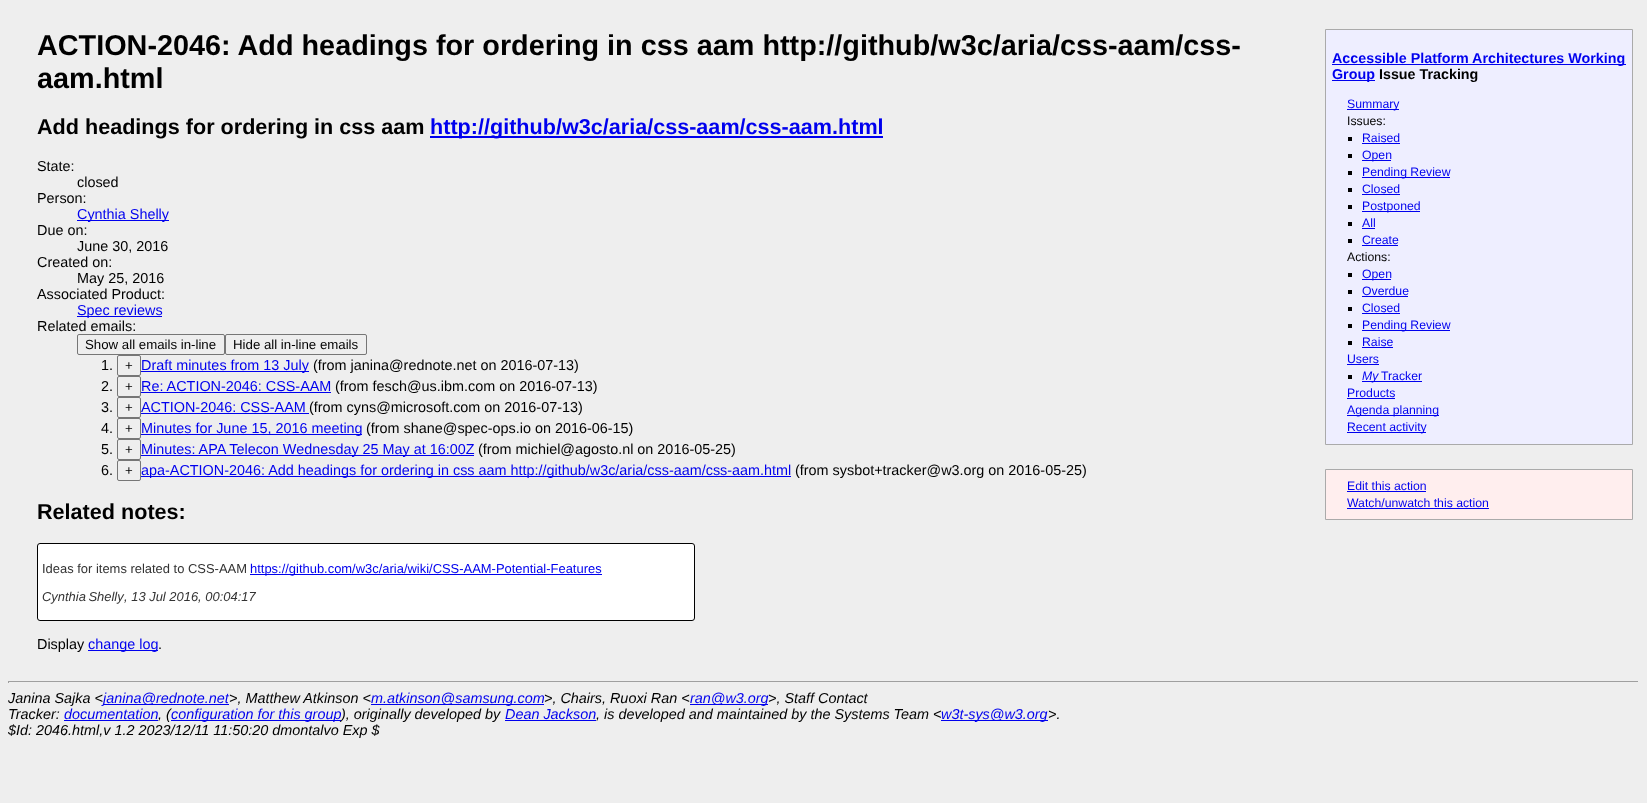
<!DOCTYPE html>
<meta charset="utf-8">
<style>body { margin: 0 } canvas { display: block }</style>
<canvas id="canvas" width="1647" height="803"></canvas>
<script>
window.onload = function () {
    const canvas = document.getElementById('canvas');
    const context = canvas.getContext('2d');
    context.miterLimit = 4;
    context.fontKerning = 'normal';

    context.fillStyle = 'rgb(238, 238, 238)';
    context.fillRect(0, 0, 1647, 803);
    context.fillStyle = 'rgb(0, 0, 238)';
    context.fillRect(430, 136, 453, 2);
    context.fillRect(77, 220, 92, 1);
    context.fillRect(77, 316, 85, 1);
    context.beginPath();
    context.roundRect(77.5, 334.5, 147, 20, 1.5);
    context.strokeStyle = 'rgb(118, 118, 118)';
    context.stroke();
    context.beginPath();
    context.roundRect(225.5, 334.5, 141, 20, 1.5);
    context.stroke();
    context.beginPath();
    context.roundRect(117.5, 355.5, 23, 20, 1.5);
    context.stroke();
    context.fillRect(141, 371, 168, 1);
    context.beginPath();
    context.roundRect(117.5, 376.5, 23, 20, 1.5);
    context.stroke();
    context.fillRect(141, 392, 190, 1);
    context.beginPath();
    context.roundRect(117.5, 397.5, 23, 20, 1.5);
    context.stroke();
    context.fillRect(141, 413, 168, 1);
    context.beginPath();
    context.roundRect(117.5, 418.5, 23, 20, 1.5);
    context.stroke();
    context.fillRect(141, 434, 221, 1);
    context.beginPath();
    context.roundRect(117.5, 439.5, 23, 20, 1.5);
    context.stroke();
    context.fillRect(141, 455, 333, 1);
    context.beginPath();
    context.roundRect(117.5, 460.5, 23, 20, 1.5);
    context.stroke();
    context.fillRect(141, 476, 650, 1);
    context.fillStyle = 'rgb(255, 255, 255)';
    context.beginPath();
    context.roundRect(37.5, 543.5, 657, 77, 2.5);
    context.fill();
    context.strokeStyle = 'rgb(0, 0, 0)';
    context.stroke();
    context.fillStyle = 'rgb(0, 0, 238)';
    context.fillRect(250, 574, 352, 1);
    context.fillRect(88, 650, 70, 1);
    context.fillStyle = 'rgb(238, 238, 255)';
    context.beginPath();
    context.rect(1325.5, 29.5, 307, 415);
    context.fill();
    context.strokeStyle = 'rgb(170, 170, 170)';
    context.stroke();
    context.fillStyle = 'rgb(0, 0, 238)';
    context.fillRect(1332, 64, 294, 1);
    context.fillRect(1332, 80, 43, 1);
    context.fillRect(1347, 109, 52, 1);
    context.fillStyle = 'rgb(0, 0, 0)';
    context.fillRect(1348, 137, 4, 4);
    context.fillStyle = 'rgb(0, 0, 238)';
    context.fillRect(1362, 143, 38, 1);
    context.fillStyle = 'rgb(0, 0, 0)';
    context.fillRect(1348, 154, 4, 4);
    context.fillStyle = 'rgb(0, 0, 238)';
    context.fillRect(1362, 160, 29, 1);
    context.fillStyle = 'rgb(0, 0, 0)';
    context.fillRect(1348, 171, 4, 4);
    context.fillStyle = 'rgb(0, 0, 238)';
    context.fillRect(1362, 177, 88, 1);
    context.fillStyle = 'rgb(0, 0, 0)';
    context.fillRect(1348, 188, 4, 4);
    context.fillStyle = 'rgb(0, 0, 238)';
    context.fillRect(1362, 194, 38, 1);
    context.fillStyle = 'rgb(0, 0, 0)';
    context.fillRect(1348, 205, 4, 4);
    context.fillStyle = 'rgb(0, 0, 238)';
    context.fillRect(1362, 211, 58, 1);
    context.fillStyle = 'rgb(0, 0, 0)';
    context.fillRect(1348, 222, 4, 4);
    context.fillStyle = 'rgb(0, 0, 238)';
    context.fillRect(1362, 228, 13, 1);
    context.fillStyle = 'rgb(0, 0, 0)';
    context.fillRect(1348, 239, 4, 4);
    context.fillStyle = 'rgb(0, 0, 238)';
    context.fillRect(1362, 245, 36, 1);
    context.fillStyle = 'rgb(0, 0, 0)';
    context.fillRect(1348, 273, 4, 4);
    context.fillStyle = 'rgb(0, 0, 238)';
    context.fillRect(1362, 279, 29, 1);
    context.fillStyle = 'rgb(0, 0, 0)';
    context.fillRect(1348, 290, 4, 4);
    context.fillStyle = 'rgb(0, 0, 238)';
    context.fillRect(1362, 296, 46, 1);
    context.fillStyle = 'rgb(0, 0, 0)';
    context.fillRect(1348, 307, 4, 4);
    context.fillStyle = 'rgb(0, 0, 238)';
    context.fillRect(1362, 313, 38, 1);
    context.fillStyle = 'rgb(0, 0, 0)';
    context.fillRect(1348, 324, 4, 4);
    context.fillStyle = 'rgb(0, 0, 238)';
    context.fillRect(1362, 330, 88, 1);
    context.fillStyle = 'rgb(0, 0, 0)';
    context.fillRect(1348, 341, 4, 4);
    context.fillStyle = 'rgb(0, 0, 238)';
    context.fillRect(1362, 347, 31, 1);
    context.fillRect(1347, 364, 32, 1);
    context.fillStyle = 'rgb(0, 0, 0)';
    context.fillRect(1348, 375, 4, 4);
    context.fillStyle = 'rgb(0, 0, 238)';
    context.fillRect(1362, 381, 16, 1);
    context.fillRect(1378, 381, 44, 1);
    context.fillRect(1347, 398, 48, 1);
    context.fillRect(1347, 415, 92, 1);
    context.fillRect(1347, 432, 79, 1);
    context.fillStyle = 'rgb(255, 238, 238)';
    context.beginPath();
    context.rect(1325.5, 469.5, 307, 50);
    context.fill();
    context.stroke();
    context.fillStyle = 'rgb(0, 0, 238)';
    context.fillRect(1347, 491, 79, 1);
    context.fillRect(1347, 508, 142, 1);
    context.fillStyle = 'rgb(159, 159, 159)';
    context.fillRect(8, 681, 1631, 1);
    context.fillStyle = 'rgb(238, 238, 238)';
    context.fillRect(1638, 681, 1, 2);
    context.fillStyle = 'rgb(159, 159, 159)';
    context.fillRect(8, 681, 1, 2);
    context.fillStyle = 'rgb(0, 0, 238)';
    context.fillRect(103, 704, 126, 1);
    context.fillRect(371, 704, 173, 1);
    context.fillRect(690, 704, 78, 1);
    context.fillRect(64, 720, 94, 1);
    context.fillRect(505, 720, 91, 1);
    context.fillRect(941, 720, 107, 1);
    context.font = 'bold 28.8px Liberation Sans';
    context.fillStyle = 'rgb(0, 0, 0)';
    context.fillText('ACTION-2046: Add headings for ordering in css aam http://github/w3c/aria/css-aam/css-', 37, 55);
    context.fillText('aam.html', 37, 88);
    context.font = 'bold 21.6px Liberation Sans';
    context.fillText('Add headings for ordering in css aam', 37, 134);
    context.fillStyle = 'rgb(0, 0, 238)';
    context.fillText('http://github/w3c/aria/css-aam/css-aam.html', 430, 134);
    context.font = '14.4px Liberation Sans';
    context.fillStyle = 'rgb(0, 0, 0)';
    context.fillText('State:', 37, 171);
    context.fillText('closed', 77, 187);
    context.fillText('Person:', 37, 203);
    context.fillStyle = 'rgb(0, 0, 238)';
    context.fillText('Cynthia Shelly', 77, 219);
    context.fillStyle = 'rgb(0, 0, 0)';
    context.fillText('Due on:', 37, 235);
    context.fillText('June 30, 2016', 77, 251);
    context.fillText('Created on:', 37, 267);
    context.fillText('May 25, 2016', 77, 283);
    context.fillText('Associated Product:', 37, 299);
    context.fillStyle = 'rgb(0, 0, 238)';
    context.fillText('Spec reviews', 77, 315);
    context.fillStyle = 'rgb(0, 0, 0)';
    context.fillText('Related emails:', 37, 331);
    context.font = '13.25px Liberation Sans';
    context.fillText('Show all emails in-line', 85, 349);
    context.fillText('Hide all in-line emails', 233, 349);
    context.font = '14.4px Liberation Sans';
    context.fillText('1.', 101, 370);
    context.font = '13.25px Liberation Sans';
    context.fillText('+', 125, 370);
    context.font = '14.4px Liberation Sans';
    context.fillStyle = 'rgb(0, 0, 238)';
    context.fillText('Draft minutes from 13 July', 141, 370);
    context.fillStyle = 'rgb(0, 0, 0)';
    context.fillText('(from janina@rednote.net on 2016-07-13)', 313, 370);
    context.fillText('2.', 101, 391);
    context.font = '13.25px Liberation Sans';
    context.fillText('+', 125, 391);
    context.font = '14.4px Liberation Sans';
    context.fillStyle = 'rgb(0, 0, 238)';
    context.fillText('Re: ACTION-2046: CSS-AAM', 141, 391);
    context.fillStyle = 'rgb(0, 0, 0)';
    context.fillText('(from fesch@us.ibm.com on 2016-07-13)', 335, 391);
    context.fillText('3.', 101, 412);
    context.font = '13.25px Liberation Sans';
    context.fillText('+', 125, 412);
    context.font = '14.4px Liberation Sans';
    context.fillStyle = 'rgb(0, 0, 238)';
    context.fillText('ACTION-2046: CSS-AAM', 141, 412);
    context.fillStyle = 'rgb(0, 0, 0)';
    context.fillText('(from cyns@microsoft.com on 2016-07-13)', 309, 412);
    context.fillText('4.', 101, 433);
    context.font = '13.25px Liberation Sans';
    context.fillText('+', 125, 433);
    context.font = '14.4px Liberation Sans';
    context.fillStyle = 'rgb(0, 0, 238)';
    context.fillText('Minutes for June 15, 2016 meeting', 141, 433);
    context.fillStyle = 'rgb(0, 0, 0)';
    context.fillText('(from shane@spec-ops.io on 2016-06-15)', 366, 433);
    context.fillText('5.', 101, 454);
    context.font = '13.25px Liberation Sans';
    context.fillText('+', 125, 454);
    context.font = '14.4px Liberation Sans';
    context.fillStyle = 'rgb(0, 0, 238)';
    context.fillText('Minutes: APA Telecon Wednesday 25 May at 16:00Z', 141, 454);
    context.fillStyle = 'rgb(0, 0, 0)';
    context.fillText('(from michiel@agosto.nl on 2016-05-25)', 478, 454);
    context.fillText('6.', 101, 475);
    context.font = '13.25px Liberation Sans';
    context.fillText('+', 125, 475);
    context.font = '14.4px Liberation Sans';
    context.fillStyle = 'rgb(0, 0, 238)';
    context.fillText('apa-ACTION-2046: Add headings for ordering in css aam http://github/w3c/aria/css-aam/css-aam.html', 141, 475);
    context.fillStyle = 'rgb(0, 0, 0)';
    context.fillText('(from sysbot+tracker@w3.org on 2016-05-25)', 795, 475);
    context.font = 'bold 21.6px Liberation Sans';
    context.fillText('Related notes:', 37, 519);
    context.font = '12.95px Liberation Sans';
    context.fillStyle = 'rgb(51, 51, 51)';
    context.fillText('Ideas for items related to CSS-AAM', 42, 573);
    context.fillStyle = 'rgb(0, 0, 238)';
    context.fillText('https://github.com/w3c/aria/wiki/CSS-AAM-Potential-Features', 250, 573);
    context.wordSpacing = '-1px';
    context.font = 'italic 12.95px Liberation Sans';
    context.fillStyle = 'rgb(51, 51, 51)';
    context.fillText('Cynthia Shelly', 42, 601);
    context.wordSpacing = '0px';
    context.fillText(', 13 Jul 2016, 00:04:17', 124, 601);
    context.font = '14.4px Liberation Sans';
    context.fillStyle = 'rgb(0, 0, 0)';
    context.fillText('Display', 37, 649);
    context.fillStyle = 'rgb(0, 0, 238)';
    context.fillText('change log', 88, 649);
    context.fillStyle = 'rgb(0, 0, 0)';
    context.fillText('.', 158, 649);
    context.font = 'bold 14.3px Liberation Sans';
    context.fillStyle = 'rgb(0, 0, 238)';
    context.fillText('Accessible Platform Architectures Working', 1332, 63);
    context.fillText('Group', 1332, 79);
    context.fillStyle = 'rgb(0, 0, 0)';
    context.fillText('Issue Tracking', 1379, 79);
    context.font = '12.25px Liberation Sans';
    context.fillStyle = 'rgb(0, 0, 238)';
    context.fillText('Summary', 1347, 108);
    context.fillStyle = 'rgb(0, 0, 0)';
    context.fillText('Issues:', 1347, 125);
    context.fillStyle = 'rgb(0, 0, 238)';
    context.fillText('Raised', 1362, 142);
    context.fillText('Open', 1362, 159);
    context.fillText('Pending Review', 1362, 176);
    context.fillText('Closed', 1362, 193);
    context.fillText('Postponed', 1362, 210);
    context.fillText('All', 1362, 227);
    context.fillText('Create', 1362, 244);
    context.fillStyle = 'rgb(0, 0, 0)';
    context.fillText('Actions:', 1347, 261);
    context.fillStyle = 'rgb(0, 0, 238)';
    context.fillText('Open', 1362, 278);
    context.fillText('Overdue', 1362, 295);
    context.fillText('Closed', 1362, 312);
    context.fillText('Pending Review', 1362, 329);
    context.fillText('Raise', 1362, 346);
    context.fillText('Users', 1347, 363);
    context.font = 'italic 12.25px Liberation Sans';
    context.fillText('My', 1362, 380);
    context.font = '12.25px Liberation Sans';
    context.fillText('Tracker', 1381, 380);
    context.fillText('Products', 1347, 397);
    context.fillText('Agenda planning', 1347, 414);
    context.fillText('Recent activity', 1347, 431);
    context.fillText('Edit this action', 1347, 490);
    context.fillText('Watch/unwatch this action', 1347, 507);
    context.font = 'italic 14.4px Liberation Sans';
    context.fillStyle = 'rgb(0, 0, 0)';
    context.fillText('Janina Sajka <', 8, 703);
    context.fillStyle = 'rgb(0, 0, 238)';
    context.fillText('janina@rednote.net', 103, 703);
    context.fillStyle = 'rgb(0, 0, 0)';
    context.fillText('>, Matthew Atkinson <', 229, 703);
    context.fillStyle = 'rgb(0, 0, 238)';
    context.fillText('m.atkinson@samsung.com', 371, 703);
    context.fillStyle = 'rgb(0, 0, 0)';
    context.fillText('>, Chairs, Ruoxi Ran <', 544, 703);
    context.fillStyle = 'rgb(0, 0, 238)';
    context.fillText('ran@w3.org', 690, 703);
    context.fillStyle = 'rgb(0, 0, 0)';
    context.fillText('>, Staff Contact', 768, 703);
    context.fillText('Tracker:', 8, 719);
    context.fillStyle = 'rgb(0, 0, 238)';
    context.fillText('documentation', 64, 719);
    context.fillStyle = 'rgb(0, 0, 0)';
    context.fillText(', (', 158, 719);
    context.fillStyle = 'rgb(0, 0, 238)';
    context.fillRect(171, 720, 170, 1);
    context.fillText('configuration for this group', 171, 719);
    context.fillStyle = 'rgb(0, 0, 0)';
    context.fillText('), originally developed by', 341, 719);
    context.fillStyle = 'rgb(0, 0, 238)';
    context.fillText('Dean Jackson', 505, 719);
    context.fillStyle = 'rgb(0, 0, 0)';
    context.fillText(', is developed and maintained by the Systems Team <', 596, 719);
    context.fillStyle = 'rgb(0, 0, 238)';
    context.fillText('w3t-sys@w3.org', 941, 719);
    context.fillStyle = 'rgb(0, 0, 0)';
    context.fillText('>.', 1048, 719);
    context.fillText('$Id: 2046.html,v 1.2 2023/12/11 11:50:20 dmontalvo Exp $', 8, 735);
};
</script>
